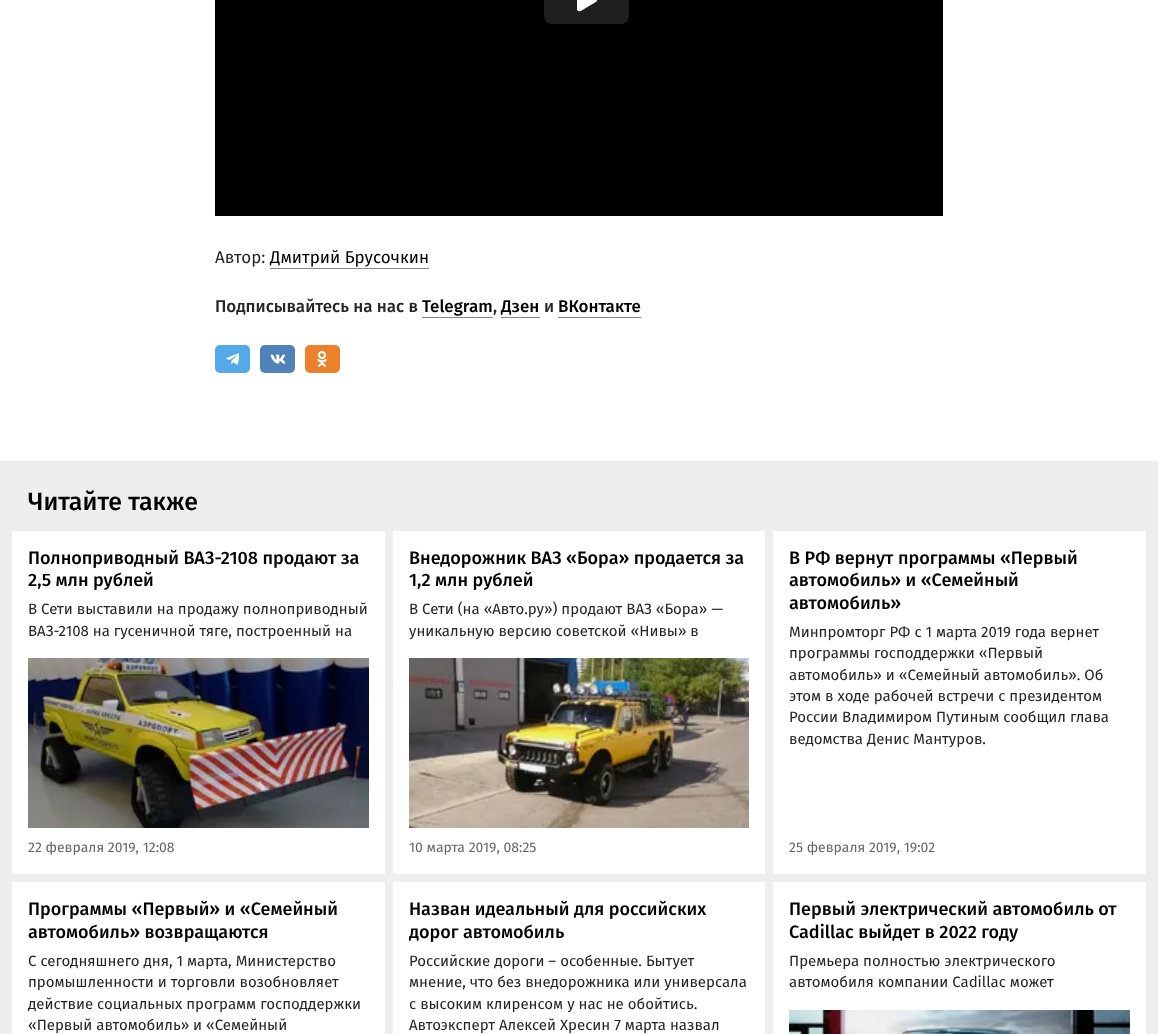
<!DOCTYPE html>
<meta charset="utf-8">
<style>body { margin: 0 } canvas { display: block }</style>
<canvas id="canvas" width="1158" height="1034"></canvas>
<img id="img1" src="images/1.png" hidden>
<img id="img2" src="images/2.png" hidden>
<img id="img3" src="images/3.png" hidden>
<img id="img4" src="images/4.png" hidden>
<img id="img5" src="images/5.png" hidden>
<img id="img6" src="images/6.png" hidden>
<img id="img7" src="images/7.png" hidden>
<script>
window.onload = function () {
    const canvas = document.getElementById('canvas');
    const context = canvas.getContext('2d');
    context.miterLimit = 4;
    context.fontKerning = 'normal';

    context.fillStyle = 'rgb(238, 238, 238)';
    context.fillRect(0, 0, 1158, 1034);
    context.fillStyle = 'rgb(255, 255, 255)';
    context.fillRect(0, 0, 1158, 461);
    context.drawImage(document.getElementById('img1'), 215, 0, 728, 216);
    context.fillStyle = 'rgb(136, 136, 136)';
    context.fillRect(270, 268, 159, 1);
    context.fillRect(422, 317, 71, 1);
    context.fillRect(501, 317, 39, 1);
    context.fillRect(558, 317, 83, 1);
    context.fillStyle = 'rgb(84, 169, 235)';
    context.beginPath();
    context.roundRect(215, 345, 35, 28, 5);
    context.fill();
    context.drawImage(document.getElementById('img2'), 226, 353, 13, 12);
    context.fillStyle = 'rgb(80, 130, 185)';
    context.beginPath();
    context.roundRect(260, 345, 35, 28, 5);
    context.fill();
    context.drawImage(document.getElementById('img3'), 270, 354, 16, 10);
    context.fillStyle = 'rgb(237, 129, 43)';
    context.beginPath();
    context.roundRect(305, 345, 35, 28, 5);
    context.fill();
    context.drawImage(document.getElementById('img4'), 317, 351, 10, 16);
    context.fillStyle = 'rgb(255, 255, 255)';
    context.fillRect(12, 531, 373, 343);
    context.drawImage(document.getElementById('img5'), 28, 658, 341, 170);
    context.fillRect(393, 531, 372, 343);
    context.drawImage(document.getElementById('img6'), 409, 658, 340, 170);
    context.fillRect(773, 531, 373, 343);
    context.fillRect(12, 882, 373, 152);
    context.fillRect(393, 882, 372, 152);
    context.fillRect(773, 882, 373, 152);
    context.drawImage(document.getElementById('img7'), 789, 1010, 341, 24);
    context.font = '17px Fira Sans';
    context.fillStyle = 'rgb(37, 37, 37)';
    context.fillText('Автор:', 215, 263);
    context.fillStyle = 'rgb(0, 0, 0)';
    context.fillText('Дмитрий Брусочкин', 270, 263);
    context.font = '500 17px Fira Sans';
    context.fillStyle = 'rgb(37, 37, 37)';
    context.fillText('Подписывайтесь на нас в', 215, 312);
    context.fillStyle = 'rgb(0, 0, 0)';
    context.fillText('Telegram', 422, 312);
    context.fillStyle = 'rgb(37, 37, 37)';
    context.fillText(',', 493, 312);
    context.fillStyle = 'rgb(0, 0, 0)';
    context.fillText('Дзен', 501, 312);
    context.fillStyle = 'rgb(37, 37, 37)';
    context.fillText('и', 544, 312);
    context.fillStyle = 'rgb(0, 0, 0)';
    context.fillText('ВКонтакте', 558, 312);
    context.font = '500 25px Fira Sans';
    context.fillText('Читайте также', 28, 510);
    context.font = '500 18px Fira Sans';
    context.fillText('Полноприводный ВАЗ-2108 продают за', 28, 564);
    context.fillText('2,5 млн рублей', 28, 586);
    context.font = '15px Fira Sans';
    context.fillStyle = 'rgb(37, 37, 37)';
    context.fillText('В Сети выставили на продажу полноприводный', 28, 614);
    context.fillText('ВАЗ-2108 на гусеничной тяге, построенный на', 28, 636);
    context.font = '14px Fira Sans';
    context.fillStyle = 'rgb(102, 102, 102)';
    context.fillText('22 февраля 2019, 12:08', 28, 852);
    context.font = '500 18px Fira Sans';
    context.fillStyle = 'rgb(0, 0, 0)';
    context.fillText('Внедорожник ВАЗ «Бора» продается за', 409, 564);
    context.fillText('1,2 млн рублей', 409, 586);
    context.font = '15px Fira Sans';
    context.fillStyle = 'rgb(37, 37, 37)';
    context.fillText('В Сети (на «Авто.ру») продают ВАЗ «Бора» —', 409, 614);
    context.fillText('уникальную версию советской «Нивы» в', 409, 636);
    context.font = '14px Fira Sans';
    context.fillStyle = 'rgb(102, 102, 102)';
    context.fillText('10 марта 2019, 08:25', 409, 852);
    context.font = '500 18px Fira Sans';
    context.fillStyle = 'rgb(0, 0, 0)';
    context.fillText('В РФ вернут программы «Первый', 789, 564);
    context.fillText('автомобиль» и «Семейный', 789, 586);
    context.fillText('автомобиль»', 789, 609);
    context.font = '15px Fira Sans';
    context.fillStyle = 'rgb(37, 37, 37)';
    context.fillText('Минпромторг РФ с 1 марта 2019 года вернет', 789, 637);
    context.fillText('программы господдержки «Первый', 789, 658);
    context.fillText('автомобиль» и «Семейный автомобиль». Об', 789, 680);
    context.fillText('этом в ходе рабочей встречи с президентом', 789, 701);
    context.fillText('России Владимиром Путиным сообщил глава', 789, 722);
    context.fillText('ведомства Денис Мантуров.', 789, 744);
    context.font = '14px Fira Sans';
    context.fillStyle = 'rgb(102, 102, 102)';
    context.fillText('25 февраля 2019, 19:02', 789, 852);
    context.font = '500 18px Fira Sans';
    context.fillStyle = 'rgb(0, 0, 0)';
    context.fillText('Программы «Первый» и «Семейный', 28, 915);
    context.fillText('автомобиль» возвращаются', 28, 938);
    context.font = '15px Fira Sans';
    context.fillStyle = 'rgb(37, 37, 37)';
    context.fillText('С сегодняшнего дня, 1 марта, Министерство', 28, 966);
    context.fillText('промышленности и торговли возобновляет', 28, 987);
    context.fillText('действие социальных программ господдержки', 28, 1009);
    context.fillText('«Первый автомобиль» и «Семейный', 28, 1030);
    context.font = '500 18px Fira Sans';
    context.fillStyle = 'rgb(0, 0, 0)';
    context.fillText('Назван идеальный для российских', 409, 915);
    context.save();
    context.beginPath();
    context.rect(409, 898, 340, 45);
    context.clip();
    context.fillText('дорог автомобиль', 409, 938);
    context.restore();
    context.font = '15px Fira Sans';
    context.fillStyle = 'rgb(37, 37, 37)';
    context.fillText('Российские дороги – особенные. Бытует', 409, 966);
    context.fillText('мнение, что без внедорожника или универсала', 409, 987);
    context.fillText('с высоким клиренсом у нас не обойтись.', 409, 1009);
    context.fillText('Автоэксперт Алексей Хресин 7 марта назвал', 409, 1030);
    context.font = '500 18px Fira Sans';
    context.fillStyle = 'rgb(0, 0, 0)';
    context.fillText('Первый электрический автомобиль от', 789, 915);
    context.fillText('Cadillac выйдет в 2022 году', 789, 938);
    context.font = '15px Fira Sans';
    context.fillStyle = 'rgb(37, 37, 37)';
    context.fillText('Премьера полностью электрического', 789, 966);
    context.fillText('автомобиля компании Cadillac может', 789, 987);
};
</script>
